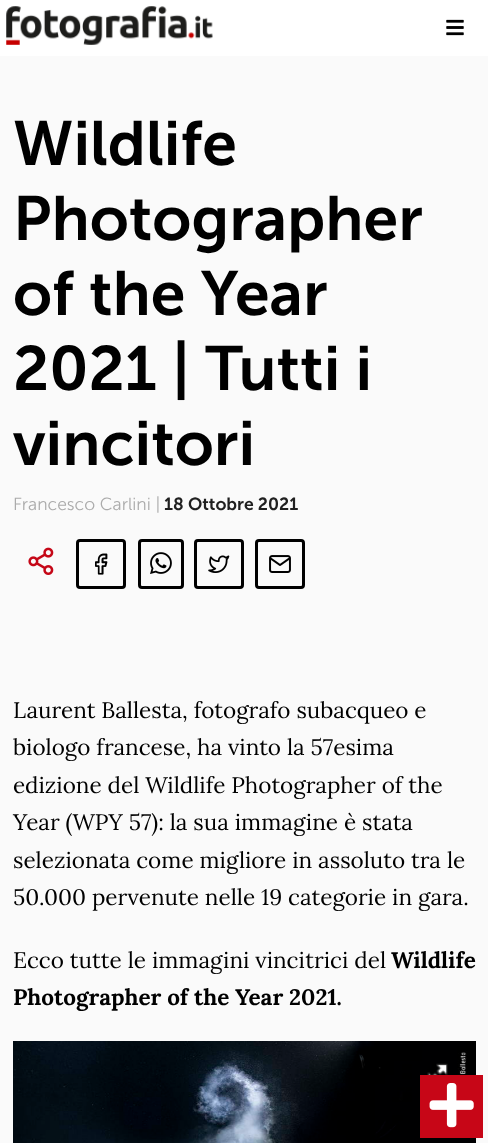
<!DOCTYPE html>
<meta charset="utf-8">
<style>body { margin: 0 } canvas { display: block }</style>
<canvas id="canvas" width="488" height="1143"></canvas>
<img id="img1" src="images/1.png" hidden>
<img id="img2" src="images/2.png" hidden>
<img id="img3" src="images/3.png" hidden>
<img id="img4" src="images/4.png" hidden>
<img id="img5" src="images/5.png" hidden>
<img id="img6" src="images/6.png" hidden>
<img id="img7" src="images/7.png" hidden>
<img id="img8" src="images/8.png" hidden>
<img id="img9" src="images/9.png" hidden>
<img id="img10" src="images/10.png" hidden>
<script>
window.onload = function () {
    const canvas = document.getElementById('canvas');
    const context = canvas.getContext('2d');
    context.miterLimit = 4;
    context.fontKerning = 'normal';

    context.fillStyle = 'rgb(250, 250, 250)';
    context.fillRect(0, 0, 488, 1143);
    context.fillStyle = 'rgb(255, 255, 255)';
    context.fillRect(0, 0, 488, 56);
    context.drawImage(document.getElementById('img1'), 6, 6, 207, 39);
    context.drawImage(document.getElementById('img2'), 446, 19, 18, 17);
    context.drawImage(document.getElementById('img3'), 28, 547, 26, 28);
    context.beginPath();
    context.roundRect(77.5, 540.5, 47, 47, 2.5);
    context.strokeStyle = 'rgb(0, 0, 0)';
    context.lineWidth = 3;
    context.stroke();
    context.drawImage(document.getElementById('img4'), 95, 553, 13, 22);
    context.beginPath();
    context.roundRect(139.5, 540.5, 43, 47, 2.5);
    context.stroke();
    context.drawImage(document.getElementById('img5'), 150, 552, 22, 22);
    context.beginPath();
    context.roundRect(195.5, 540.5, 47, 47, 2.5);
    context.stroke();
    context.drawImage(document.getElementById('img6'), 208, 555, 22, 18);
    context.beginPath();
    context.roundRect(256.5, 540.5, 47, 47, 2.5);
    context.stroke();
    context.drawImage(document.getElementById('img7'), 269, 555, 22, 18);
    context.drawImage(document.getElementById('img8'), 13, 1041, 463, 102);
    context.drawImage(document.getElementById('img9'), 427, 1063, 21, 12);
    context.fillStyle = 'rgb(199, 6, 23)';
    context.fillRect(420, 1075, 63, 63);
    context.drawImage(document.getElementById('img10'), 429, 1083, 45, 45);
    context.font = '600 62.5px Museo Sans';
    context.fillStyle = 'rgb(0, 0, 0)';
    context.fillText('Wildlife', 13, 165);
    context.fillText('Photographer', 13, 240);
    context.fillText('of the Year', 13, 315);
    context.fillText('2021 | Tutti i', 13, 390);
    context.fillText('vincitori', 13, 465);
    context.font = '300 17.5px Museo Sans';
    context.fillStyle = 'rgb(171, 171, 171)';
    context.fillText('Francesco Carlini |', 13, 510);
    context.font = '600 17.5px Museo Sans';
    context.fillStyle = 'rgb(32, 32, 32)';
    context.fillText('18 Ottobre 2021', 164, 510);
    context.font = '22.5px Lora';
    context.fillStyle = 'rgb(0, 0, 0)';
    context.fillText('Laurent Ballesta, fotografo subacqueo e', 13, 718);
    context.fillText('biologo francese, ha vinto la 57esima', 13, 755);
    context.fillText('edizione del Wildlife Photographer of the', 13, 793);
    context.fillText('Year (WPY 57): la sua immagine è stata', 13, 830);
    context.fillText('selezionata come migliore in assoluto tra le', 13, 868);
    context.fillText('50.000 pervenute nelle 19 categorie in gara.', 13, 905);
    context.fillText('Ecco tutte le immagini vincitrici del', 13, 968);
    context.font = 'bold 22.5px Lora';
    context.fillText('Wildlife', 391, 968);
    context.fillText('Photographer of the Year 2021.', 13, 1005);
};
</script>
